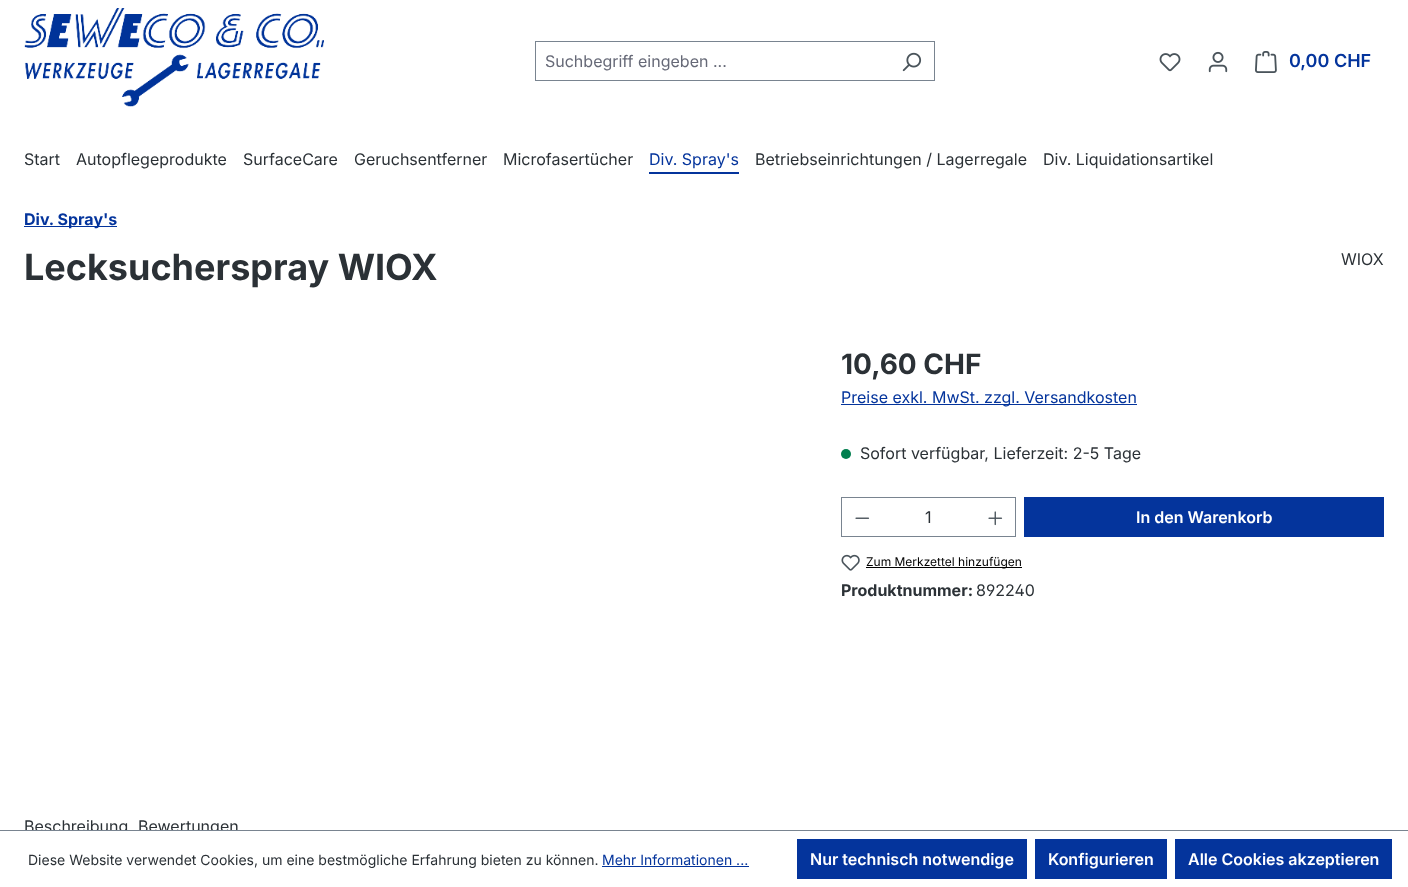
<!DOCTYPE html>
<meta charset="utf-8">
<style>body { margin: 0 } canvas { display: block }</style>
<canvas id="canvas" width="1408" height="887"></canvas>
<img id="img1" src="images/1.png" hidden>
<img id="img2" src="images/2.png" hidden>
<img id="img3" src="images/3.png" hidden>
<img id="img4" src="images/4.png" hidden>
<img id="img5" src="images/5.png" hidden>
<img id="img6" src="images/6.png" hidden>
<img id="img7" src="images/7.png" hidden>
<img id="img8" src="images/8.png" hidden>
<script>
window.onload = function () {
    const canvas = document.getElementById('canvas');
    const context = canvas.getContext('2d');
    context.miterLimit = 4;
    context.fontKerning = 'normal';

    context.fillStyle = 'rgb(255, 255, 255)';
    context.fillRect(0, 0, 1408, 887);
    context.drawImage(document.getElementById('img1'), 24, 8, 300, 99);
    context.fillStyle = 'rgb(121, 132, 144)';
    context.fillRect(535, 41, 400, 1);
    context.fillRect(535, 80, 354, 1);
    context.fillRect(535, 41, 1, 40);
    context.fillRect(934, 41, 1, 40);
    context.fillRect(888, 80, 47, 1);
    context.drawImage(document.getElementById('img2'), 902, 52, 20, 20);
    context.drawImage(document.getElementById('img3'), 1159, 53, 22, 19);
    context.drawImage(document.getElementById('img4'), 1208, 51, 20, 22);
    context.drawImage(document.getElementById('img5'), 1255, 51, 22, 22);
    context.fillStyle = 'rgb(4, 52, 156)';
    context.fillRect(649, 172, 90, 2);
    context.fillRect(24, 226, 93, 1);
    context.fillRect(841, 404, 296, 1);
    context.fillStyle = 'rgb(0, 126, 78)';
    context.beginPath();
    context.arc(846, 454, 5, 0, 2 * Math.PI);
    context.fill();
    context.fillStyle = 'rgb(121, 132, 144)';
    context.fillRect(841, 497, 175, 1);
    context.fillRect(841, 536, 135, 1);
    context.fillRect(841, 497, 1, 40);
    context.drawImage(document.getElementById('img6'), 855, 517, 15, 2);
    context.fillRect(1015, 497, 1, 40);
    context.fillRect(975, 536, 41, 1);
    context.drawImage(document.getElementById('img7'), 988, 511, 15, 15);
    context.fillStyle = 'rgb(4, 52, 156)';
    context.fillRect(1024, 497, 360, 40);
    context.drawImage(document.getElementById('img8'), 841, 554, 19, 17);
    context.fillStyle = 'rgb(0, 0, 0)';
    context.fillRect(866, 567, 156, 1);
    context.fillStyle = 'rgb(4, 52, 156)';
    context.fillRect(602, 866, 147, 1);
    context.fillRect(797, 839, 230, 40);
    context.fillRect(1035, 839, 132, 40);
    context.fillRect(1175, 839, 217, 40);
    context.font = '16px Inter';
    context.fillStyle = 'rgb(102, 105, 119)';
    context.fillText('Suchbegriff eingeben ...', 545, 67);
    context.font = '600 18px Inter';
    context.fillStyle = 'rgb(4, 52, 156)';
    context.fillText('0,00 CHF', 1289, 67);
    context.font = '16px Inter';
    context.fillStyle = 'rgb(43, 49, 54)';
    context.fillText('Start', 24, 165);
    context.fillText('Autopflegeprodukte', 76, 165);
    context.fillText('SurfaceCare', 243, 165);
    context.fillText('Geruchsentferner', 354, 165);
    context.fillText('Microfasertücher', 503, 165);
    context.fillStyle = 'rgb(4, 52, 156)';
    context.fillText('Div. Spray\'s', 649, 165);
    context.fillStyle = 'rgb(43, 49, 54)';
    context.fillText('Betriebseinrichtungen / Lagerregale', 755, 165);
    context.fillText('Div. Liquidationsartikel', 1043, 165);
    context.font = 'bold 16px Inter';
    context.fillStyle = 'rgb(4, 52, 156)';
    context.fillText('Div. Spray\'s', 24, 225);
    context.font = 'bold 36px Inter';
    context.fillStyle = 'rgb(43, 49, 54)';
    context.fillText('Lecksucherspray WIOX', 24, 280);
    context.font = '16px Inter';
    context.fillText('WIOX', 1341, 265);
    context.font = 'bold 28px Inter';
    context.fillText('10,60 CHF', 841, 374);
    context.font = '16px Inter';
    context.fillStyle = 'rgb(4, 52, 156)';
    context.fillText('Preise exkl. MwSt. zzgl. Versandkosten', 841, 403);
    context.fillStyle = 'rgb(43, 49, 54)';
    context.fillText('Sofort verfügbar, Lieferzeit: 2-5 Tage', 860, 459);
    context.fillText('1', 925, 523);
    context.font = '600 16px Inter';
    context.fillStyle = 'rgb(255, 255, 255)';
    context.fillText('In den Warenkorb', 1136, 523);
    context.font = '12px Inter';
    context.fillStyle = 'rgb(0, 0, 0)';
    context.fillText('Zum Merkzettel hinzufügen', 866, 566);
    context.font = 'bold 16px Inter';
    context.fillStyle = 'rgb(43, 49, 54)';
    context.fillText('Produktnummer:', 841, 596);
    context.font = '16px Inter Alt';
    context.fillText('892240', 976, 596);
    context.font = '16px Inter';
    context.fillText('Beschreibung', 24, 832);
    context.fillText('Bewertungen', 138, 832);
    context.fillStyle = 'rgb(255, 255, 255)';
    context.fillRect(25, 831, 213, 5);
    context.fillStyle = 'rgb(121, 132, 144)';
    context.fillRect(0, 830, 1408, 1);
    context.font = '14px Inter';
    context.fillStyle = 'rgb(43, 49, 54)';
    context.fillText('Diese Website verwendet Cookies, um eine bestmögliche Erfahrung bieten zu können.', 28, 865);
    context.fillStyle = 'rgb(4, 52, 156)';
    context.fillText('Mehr Informationen ...', 602, 865);
    context.font = '600 16px Inter';
    context.fillStyle = 'rgb(255, 255, 255)';
    context.fillText('Nur technisch notwendige', 810, 865);
    context.fillText('Konfigurieren', 1048, 865);
    context.fillText('Alle Cookies akzeptieren', 1188, 865);
};
</script>
